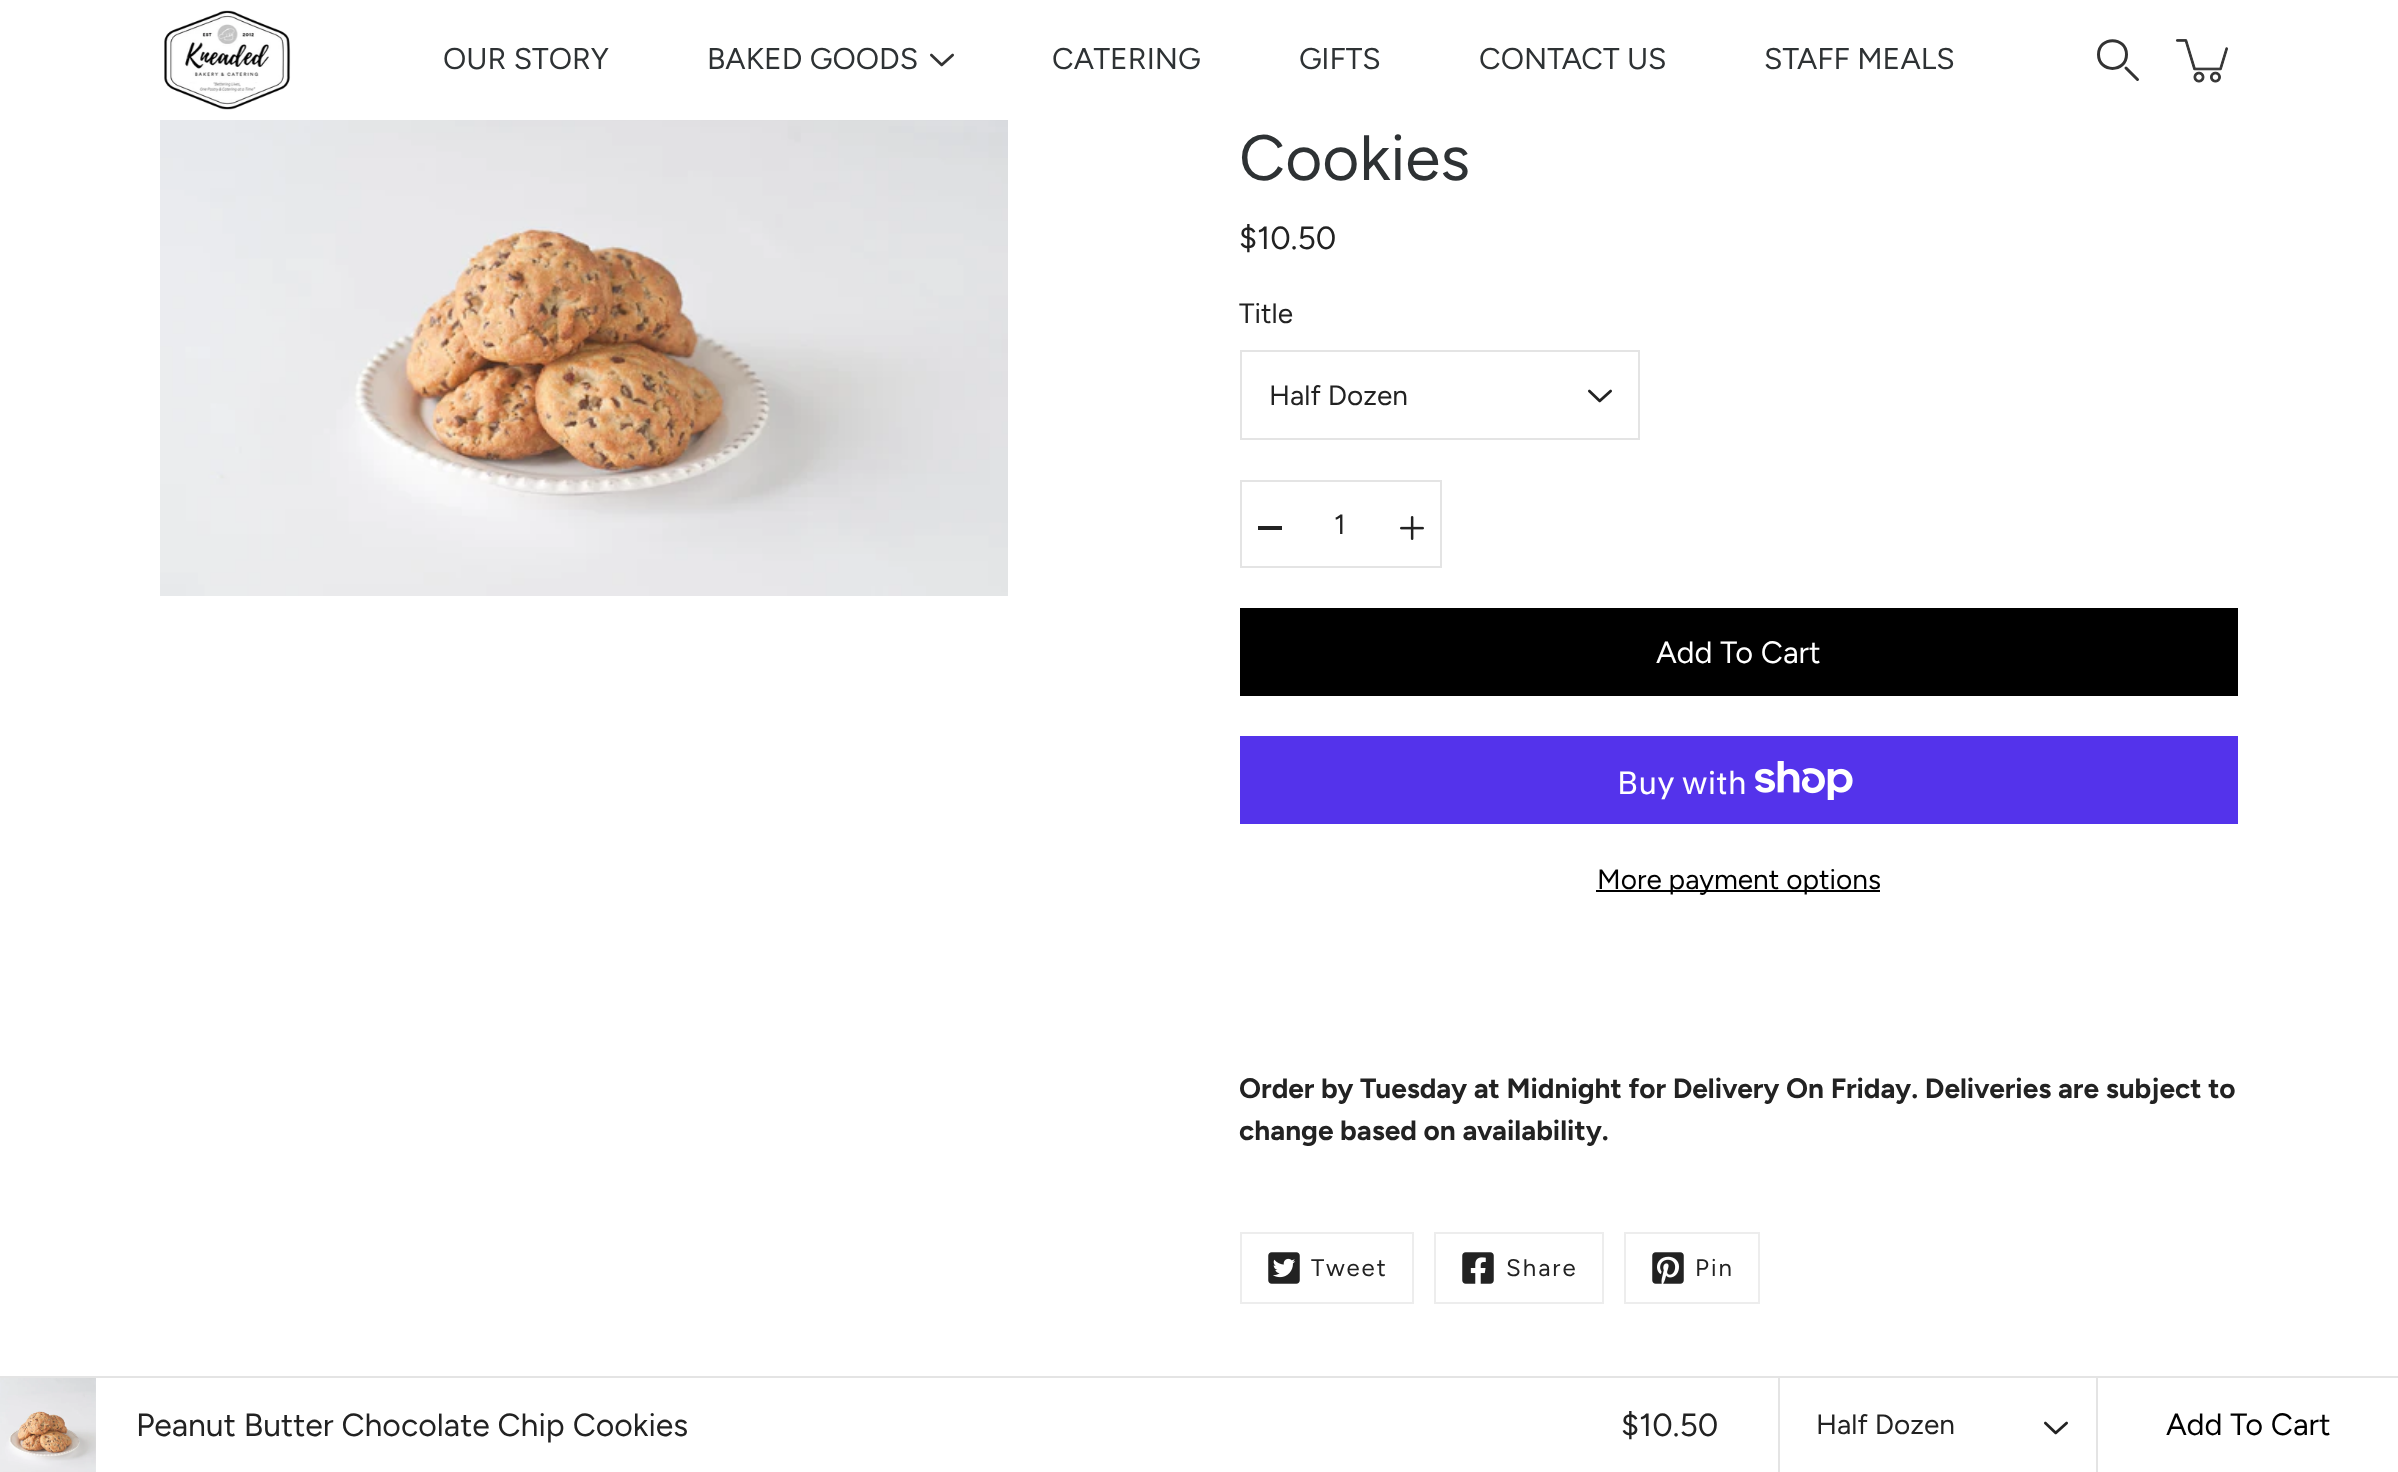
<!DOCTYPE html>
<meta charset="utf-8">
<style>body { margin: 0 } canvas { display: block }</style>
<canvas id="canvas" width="2398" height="1472"></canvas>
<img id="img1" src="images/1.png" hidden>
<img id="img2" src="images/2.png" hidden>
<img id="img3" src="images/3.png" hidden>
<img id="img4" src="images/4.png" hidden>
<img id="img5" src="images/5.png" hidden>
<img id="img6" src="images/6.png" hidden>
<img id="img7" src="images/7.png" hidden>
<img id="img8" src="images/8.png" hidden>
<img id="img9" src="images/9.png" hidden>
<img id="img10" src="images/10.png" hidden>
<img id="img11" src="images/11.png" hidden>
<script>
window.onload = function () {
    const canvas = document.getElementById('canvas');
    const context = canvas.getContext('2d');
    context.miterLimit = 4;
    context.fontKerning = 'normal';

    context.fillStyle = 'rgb(255, 255, 255)';
    context.fillRect(0, 0, 2398, 1472);
    context.drawImage(document.getElementById('img1'), 164, 10, 127, 100);
    context.drawImage(document.getElementById('img2'), 930, 53, 24, 14);
    context.beginPath();
    context.moveTo(2126.5, 54.5);
    context.bezierCurveTo(2126.5, 73, 2098.5, 73, 2098.5, 54.5);
    context.bezierCurveTo(2098.5, 36, 2126.5, 36, 2126.5, 54.5);
    context.closePath();
    context.strokeStyle = 'rgb(51, 51, 51)';
    context.lineWidth = 3;
    context.stroke();
    context.beginPath();
    context.moveTo(2126, 68);
    context.lineTo(2137.5, 79.5);
    context.lineCap = 'round';
    context.stroke();
    context.drawImage(document.getElementById('img3'), 2175, 39, 53, 44);
    context.drawImage(document.getElementById('img4'), 160, 120, 848, 476);
    context.strokeStyle = 'rgb(228, 228, 228)';
    context.lineWidth = 2;
    context.strokeRect(1241, 351, 398, 88);
    context.drawImage(document.getElementById('img5'), 1588, 389, 24, 14);
    context.strokeRect(1241, 481, 200, 86);
    context.fillStyle = 'rgb(34, 34, 34)';
    context.fillRect(1258, 526, 24, 4);
    context.drawImage(document.getElementById('img6'), 1400, 516, 24, 24);
    context.fillStyle = 'rgb(0, 0, 0)';
    context.fillRect(1240, 608, 998, 88);
    context.fillStyle = 'rgb(84, 51, 235)';
    context.fillRect(1240, 736, 998, 88);
    context.drawImage(document.getElementById('img7'), 1755, 761, 98, 39);
    context.fillStyle = 'rgb(0, 0, 0)';
    context.fillRect(1596, 890, 284, 2);
    context.strokeStyle = 'rgb(237, 237, 237)';
    context.strokeRect(1241, 1233, 172, 70);
    context.drawImage(document.getElementById('img8'), 1268, 1252, 32, 32);
    context.strokeRect(1435, 1233, 168, 70);
    context.drawImage(document.getElementById('img9'), 1462, 1252, 32, 32);
    context.strokeRect(1625, 1233, 134, 70);
    context.drawImage(document.getElementById('img10'), 1652, 1252, 32, 32);
    context.fillStyle = 'rgb(228, 228, 228)';
    context.fillRect(0, 1376, 2398, 2);
    context.fillRect(1778, 1378, 2, 94);
    context.drawImage(document.getElementById('img11'), 0, 1378, 96, 94);
    context.fillRect(2096, 1378, 2, 94);
    context.drawImage(document.getElementById('img5'), 2044, 1421, 24, 14);
    context.font = '30px Figtree';
    context.fillStyle = 'rgb(46, 50, 52)';
    context.fillText('OUR STORY', 443, 69);
    context.fillText('BAKED GOODS', 707, 69);
    context.fillText('CATERING', 1052, 69);
    context.fillText('GIFTS', 1299, 69);
    context.fillText('CONTACT US', 1479, 69);
    context.fillText('STAFF MEALS', 1764, 69);
    context.font = '64px Figtree';
    context.fillText('Cookies', 1239, 180);
    context.font = '32px Figtree';
    context.fillStyle = 'rgb(34, 34, 34)';
    context.fillText('$10.50', 1239, 249);
    context.font = '28px Figtree';
    context.fillText('Title', 1239, 323);
    context.fillText('Half Dozen', 1269, 405);
    context.fillText('1', 1334, 534);
    context.font = '30.75px Figtree';
    context.fillStyle = 'rgb(255, 255, 255)';
    context.fillText('Add To Cart', 1656, 663);
    context.font = '32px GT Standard';
    context.fillText('Buy with', 1617, 794);
    context.font = '28px Figtree';
    context.fillStyle = 'rgb(0, 0, 0)';
    context.fillText('More payment options', 1597, 889);
    context.font = 'bold 28px Figtree';
    context.fillStyle = 'rgb(34, 34, 34)';
    context.fillText('Order by Tuesday at Midnight for Delivery On Friday. Deliveries are subject to', 1239, 1098);
    context.fillText('change based on availability.', 1239, 1140);
    context.letterSpacing = '2px';
    context.font = '24px Figtree';
    context.fillText('Tweet', 1311, 1276);
    context.fillText('Share', 1506, 1276);
    context.fillText('Pin', 1695, 1276);
    context.letterSpacing = '0px';
    context.font = '32px Figtree';
    context.fillText('Peanut Butter Chocolate Chip Cookies', 136, 1436);
    context.fillText('$10.50', 1621, 1436);
    context.font = '28px Figtree';
    context.fillText('Half Dozen', 1816, 1434);
    context.font = '30.75px Figtree';
    context.fillStyle = 'rgb(0, 0, 0)';
    context.fillText('Add To Cart', 2166, 1435);
};
</script>
